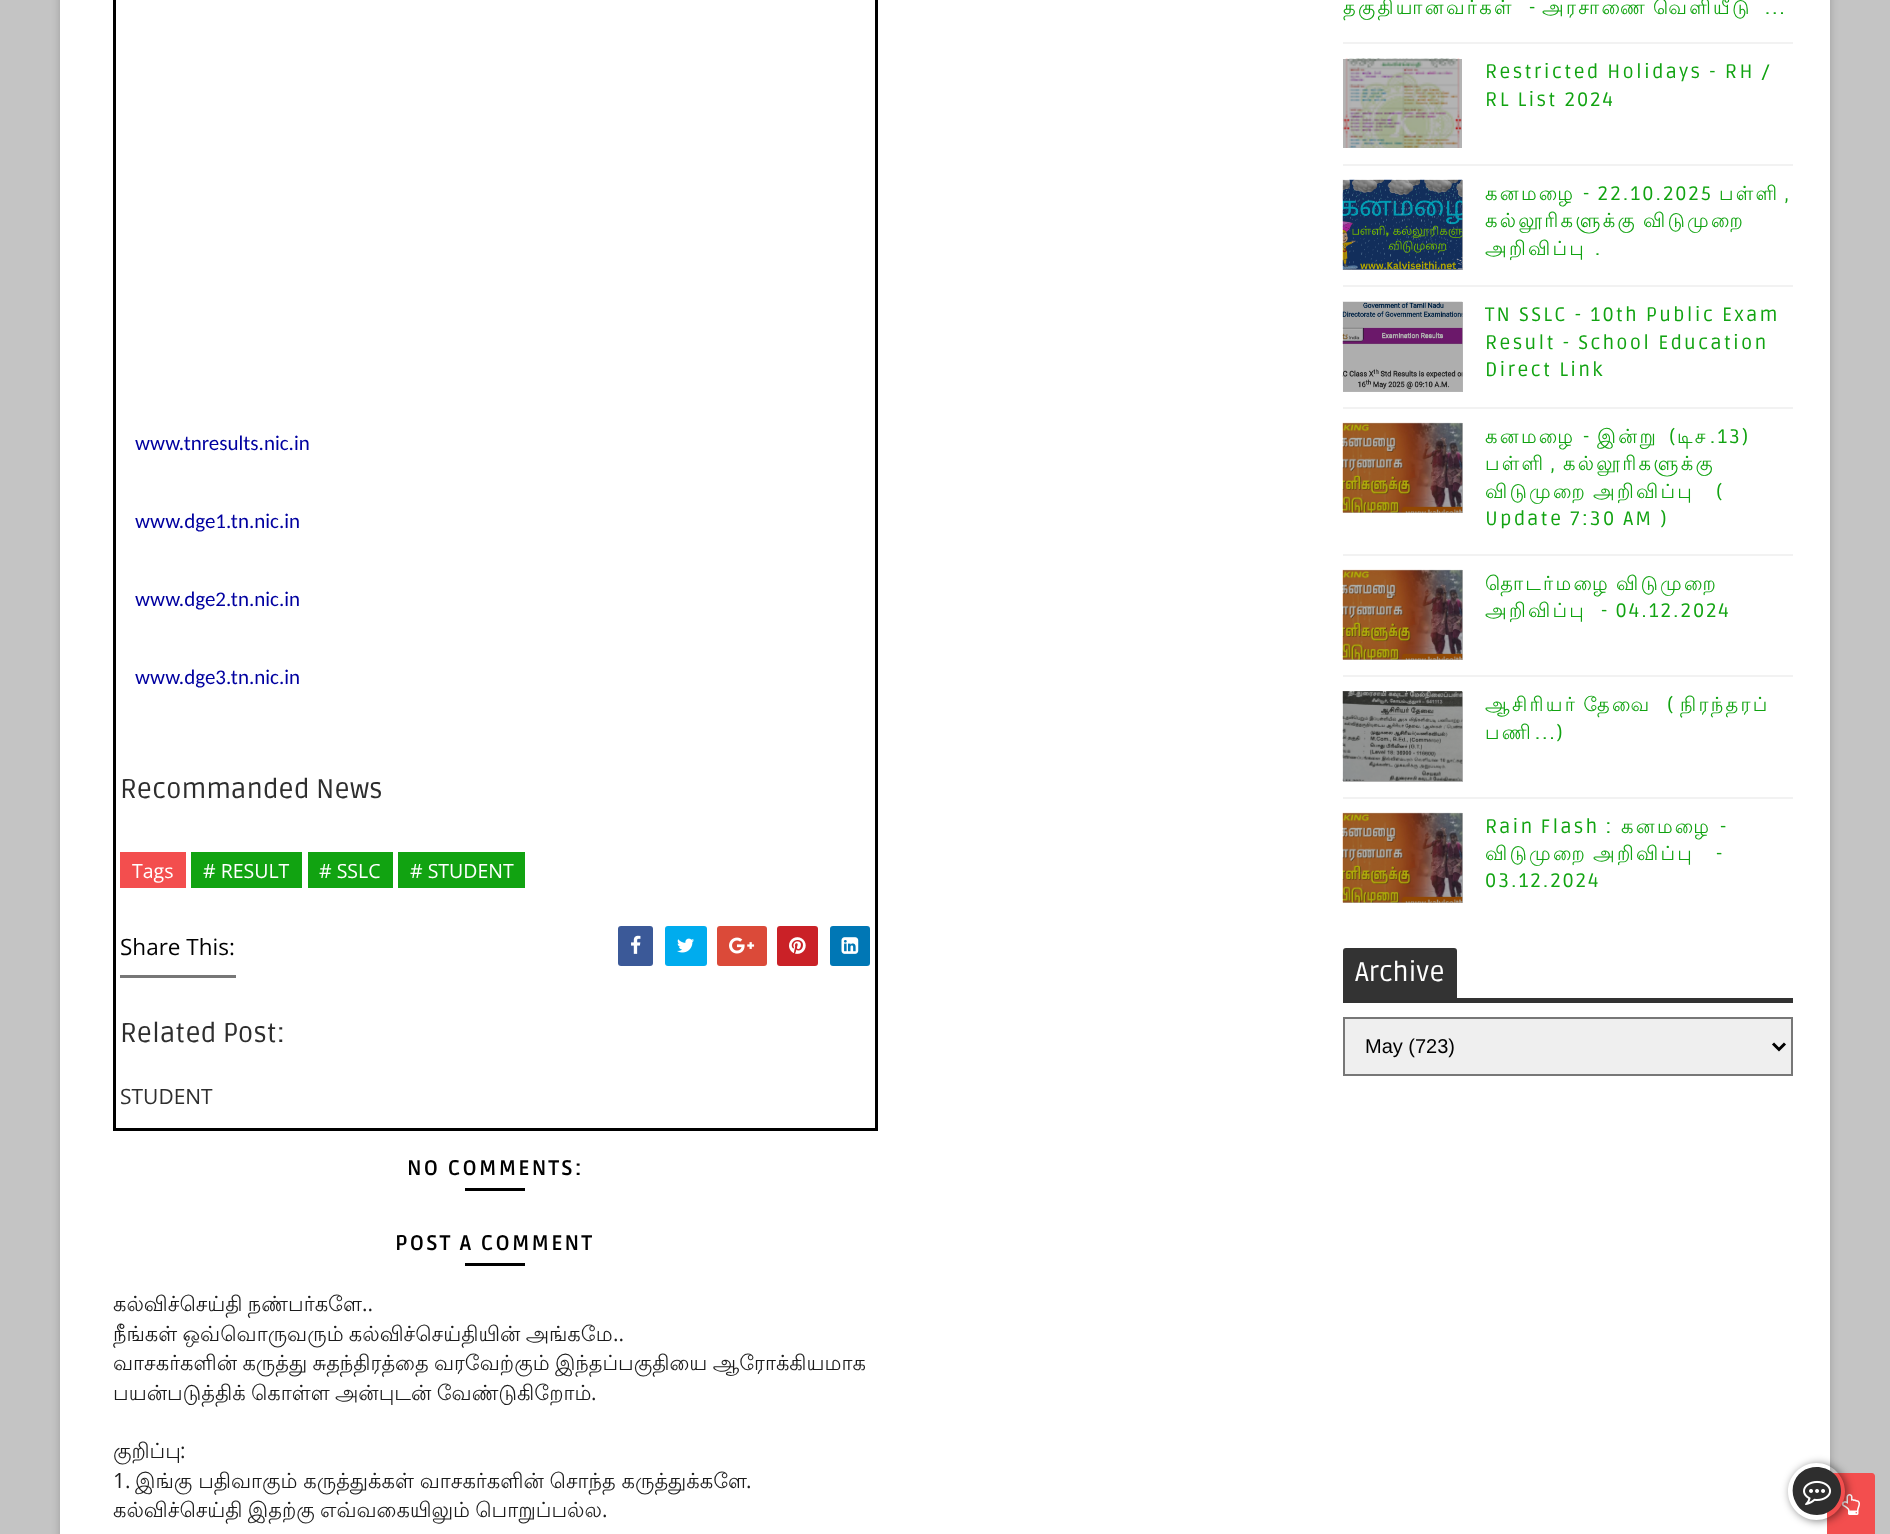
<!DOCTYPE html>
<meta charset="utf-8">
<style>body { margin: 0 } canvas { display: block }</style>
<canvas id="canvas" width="1890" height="1534"></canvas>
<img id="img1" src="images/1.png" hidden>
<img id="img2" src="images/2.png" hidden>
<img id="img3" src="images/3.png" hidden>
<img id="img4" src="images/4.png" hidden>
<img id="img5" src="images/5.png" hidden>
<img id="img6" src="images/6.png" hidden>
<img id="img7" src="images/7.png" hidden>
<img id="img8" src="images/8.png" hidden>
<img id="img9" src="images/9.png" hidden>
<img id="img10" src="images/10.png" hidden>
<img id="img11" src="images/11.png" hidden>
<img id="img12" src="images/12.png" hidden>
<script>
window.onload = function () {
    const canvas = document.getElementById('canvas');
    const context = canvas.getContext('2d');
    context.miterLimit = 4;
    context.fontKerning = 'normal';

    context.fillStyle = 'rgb(196, 196, 196)';
    context.fillRect(0, 0, 1890, 1534);
    context.fillStyle = 'rgba(0, 0, 0, 0.2)';
    context.filter = 'blur(4px)';
    context.beginPath();
    context.rect(60, -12, 1770, 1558);
    context.fill();
    context.filter = 'none';
    context.fillStyle = 'rgb(255, 255, 255)';
    context.fillRect(60, 0, 1770, 1534);
    context.fillStyle = 'rgb(179, 179, 179)';
    context.fillRect(1343, 813, 120, 90);
    context.fillRect(1343, 692, 120, 90);
    context.fillRect(1343, 570, 120, 90);
    context.fillRect(1343, 423, 120, 90);
    context.fillRect(1343, 302, 120, 90);
    context.fillRect(1343, 180, 120, 90);
    context.strokeStyle = 'rgb(0, 0, 0)';
    context.lineWidth = 3;
    context.strokeRect(114.5, -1.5, 762, 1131);
    context.fillStyle = 'rgb(243, 78, 78)';
    context.fillRect(120, 852, 66, 36);
    context.fillStyle = 'rgb(17, 163, 17)';
    context.fillRect(191, 852, 111, 36);
    context.fillRect(308, 852, 85, 36);
    context.fillRect(398, 852, 127, 36);
    context.fillStyle = 'rgb(119, 119, 119)';
    context.fillRect(120, 975, 116, 3);
    context.fillStyle = 'rgb(59, 89, 152)';
    context.beginPath();
    context.roundRect(618, 926, 35, 40, 3);
    context.fill();
    context.drawImage(document.getElementById('img1'), 631, 935, 10, 19);
    context.fillStyle = 'rgb(0, 172, 238)';
    context.beginPath();
    context.roundRect(665, 926, 42, 40, 3);
    context.fill();
    context.drawImage(document.getElementById('img2'), 677, 938, 17, 15);
    context.fillStyle = 'rgb(219, 74, 57)';
    context.beginPath();
    context.roundRect(717, 926, 50, 40, 3);
    context.fill();
    context.drawImage(document.getElementById('img3'), 729, 937, 26, 17);
    context.fillStyle = 'rgb(202, 33, 39)';
    context.beginPath();
    context.roundRect(777, 926, 41, 40, 3);
    context.fill();
    context.drawImage(document.getElementById('img4'), 789, 937, 17, 17);
    context.fillStyle = 'rgb(0, 119, 181)';
    context.beginPath();
    context.roundRect(830, 926, 40, 40, 3);
    context.fill();
    context.drawImage(document.getElementById('img5'), 841, 937, 18, 17);
    context.fillStyle = 'rgb(0, 0, 0)';
    context.fillRect(465, 1188, 60, 3);
    context.fillRect(465, 1263, 60, 3);
    context.fillStyle = 'rgb(242, 242, 242)';
    context.fillRect(1343, 42, 450, 2);
    context.drawImage(document.getElementById('img6'), 1342, 58, 120, 90);
    context.fillRect(1343, 164, 450, 2);
    context.drawImage(document.getElementById('img7'), 1342, 179, 121, 91);
    context.fillRect(1343, 285, 450, 2);
    context.drawImage(document.getElementById('img8'), 1342, 301, 121, 90);
    context.fillRect(1343, 407, 450, 2);
    context.drawImage(document.getElementById('img9'), 1342, 422, 121, 91);
    context.fillRect(1343, 554, 450, 2);
    context.drawImage(document.getElementById('img9'), 1342, 569, 121, 91);
    context.fillRect(1343, 675, 450, 2);
    context.drawImage(document.getElementById('img10'), 1342, 691, 121, 90);
    context.fillRect(1343, 797, 450, 2);
    context.drawImage(document.getElementById('img9'), 1342, 812, 121, 91);
    context.fillStyle = 'rgb(51, 51, 51)';
    context.fillRect(1343, 998, 450, 5);
    context.beginPath();
    context.roundRect(1343, 948, 114, 50, [3, 3, 0, 0]);
    context.fill();
    context.fillStyle = 'rgb(239, 239, 239)';
    context.beginPath();
    context.rect(1344, 1018, 448, 57);
    context.fill();
    context.strokeStyle = 'rgb(119, 119, 119)';
    context.lineWidth = 2;
    context.stroke();
    context.beginPath();
    context.moveTo(1773, 1043.5);
    context.lineTo(1779, 1049.5);
    context.lineTo(1785, 1043.5);
    context.strokeStyle = 'rgb(0, 0, 0)';
    context.lineWidth = 3;
    context.stroke();
    context.fillStyle = 'rgb(243, 78, 78)';
    context.beginPath();
    context.moveTo(1830, 1473);
    context.lineTo(1872, 1473);
    context.bezierCurveTo(1873.5, 1473, 1875, 1474.5, 1875, 1476);
    context.lineTo(1875, 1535);
    context.lineTo(1827, 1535);
    context.lineTo(1827, 1476);
    context.bezierCurveTo(1827, 1474.5, 1828.5, 1473, 1830, 1473);
    context.closePath();
    context.fill();
    context.drawImage(document.getElementById('img11'), 1842, 1494, 18, 21);
    context.save();
    context.beginPath();
    context.moveTo(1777, 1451);
    context.lineTo(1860, 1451);
    context.lineTo(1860, 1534);
    context.lineTo(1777, 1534);
    context.closePath();
    context.moveTo(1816.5, 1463);
    context.bezierCurveTo(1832, 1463, 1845, 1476, 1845, 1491.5);
    context.bezierCurveTo(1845, 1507, 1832, 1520, 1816.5, 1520);
    context.bezierCurveTo(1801, 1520, 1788, 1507, 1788, 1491.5);
    context.bezierCurveTo(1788, 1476, 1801, 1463, 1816.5, 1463);
    context.closePath();
    context.clip('evenodd');
    context.fillStyle = 'rgba(0, 0, 0, 0.5)';
    context.filter = 'blur(4px)';
    context.beginPath();
    context.roundRect(1790, 1464, 57, 57, 28.5);
    context.fill();
    context.filter = 'none';
    context.restore();
    context.fillStyle = 'rgb(46, 46, 46)';
    context.beginPath();
    context.moveTo(1841, 1491);
    context.bezierCurveTo(1841, 1504, 1830, 1515, 1817, 1515);
    context.bezierCurveTo(1808, 1515, 1800, 1511, 1796, 1503);
    context.bezierCurveTo(1793, 1498, 1792, 1492, 1793, 1486);
    context.bezierCurveTo(1799, 1458, 1841, 1462, 1841, 1491);
    context.closePath();
    context.fill();
    context.drawImage(document.getElementById('img12'), 1803, 1480, 29, 25);
    context.font = '21px Carlito';
    context.fillStyle = 'rgb(0, 0, 160)';
    context.fillText('www.tnresults.nic.in', 135, 450);
    context.fillText('www.dge1.tn.nic.in', 135, 528);
    context.fillText('www.dge2.tn.nic.in', 135, 606);
    context.fillText('www.dge3.tn.nic.in', 135, 684);
    context.font = '27px Ruda';
    context.fillStyle = 'rgb(46, 46, 46)';
    context.fillText('Recommanded News', 120, 798);
    context.font = '19.5px Open Sans';
    context.fillStyle = 'rgb(255, 255, 255)';
    context.fillText('Tags', 132, 878);
    context.fillText('# RESULT', 203, 878);
    context.fillText('# SSLC', 319, 878);
    context.fillText('# STUDENT', 410, 878);
    context.font = '22.5px Open Sans';
    context.fillStyle = 'rgb(1, 1, 1)';
    context.fillText('Share This:', 120, 955);
    context.font = '27px Ruda';
    context.fillStyle = 'rgb(46, 46, 46)';
    context.fillText('Related Post:', 120, 1042);
    context.font = '21px Open Sans';
    context.fillText('STUDENT', 120, 1104);
    context.letterSpacing = '2.25px';
    context.font = 'bold 21px Ruda';
    context.fillStyle = 'rgb(1, 1, 1)';
    context.fillText('NO COMMENTS:', 407, 1175);
    context.fillText('POST A COMMENT', 395, 1250);
    context.letterSpacing = '0px';
    context.wordSpacing = '-1px';
    context.font = '21px Lohit Tamil';
    context.fillStyle = 'rgb(28, 28, 28)';
    context.fillText('கல்விச்செய்தி நண்பர்களே', 113, 1311);
    context.wordSpacing = '0px';
    context.font = '21px Open Sans';
    context.fillText('..', 362, 1311);
    context.save();
    context.beginPath();
    context.rect(113, 1223, 765, 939);
    context.clip();
    context.wordSpacing = '-1px';
    context.font = '21px Lohit Tamil';
    context.fillText('நீங்கள் ஒவ்வொருவரும் கல்விச்செய்தியின் அங்கமே', 113, 1341);
    context.restore();
    context.fillText('..', 613, 1341);
    context.wordSpacing = '-1px';
    context.font = '21px Lohit Tamil';
    context.fillText('வாசகர்களின் கருத்து சுதந்திரத்தை வரவேற்கும் இந்தப்பகுதியை ஆரோக்கியமாக', 113, 1370);
    context.fillText('பயன்படுத்திக் கொள்ள அன்புடன் வேண்டுகிறோம்', 113, 1400);
    context.wordSpacing = '0px';
    context.font = '21px Open Sans';
    context.fillText('.', 591, 1400);
    context.font = '21px Lohit Tamil';
    context.fillText('குறிப்பு', 113, 1458);
    context.font = '21px Open Sans';
    context.fillText(':', 180, 1458);
    context.fillText('1.', 113, 1488);
    context.wordSpacing = '-0.5px';
    context.font = '21px Lohit Tamil';
    context.fillText('இங்கு பதிவாகும் கருத்துக்கள் வாசகர்களின் சொந்த கருத்துக்களே', 135, 1488);
    context.wordSpacing = '0px';
    context.font = '21px Open Sans';
    context.fillText('.', 746, 1488);
    context.wordSpacing = '-1px';
    context.font = '21px Lohit Tamil';
    context.fillText('கல்விச்செய்தி இதற்கு', 113, 1517);
    context.fillText('எவ்வகையிலும் பொறுப்பல்ல', 320, 1517);
    context.wordSpacing = '0px';
    context.font = '21px Open Sans';
    context.fillText('.', 602, 1517);
    context.letterSpacing = '2.25px';
    context.font = '19.5px Lohit Tamil';
    context.fillStyle = 'rgb(17, 163, 17)';
    context.fillText('தகுதியானவர்கள்', 1343, 14);
    context.font = '19.5px Ruda';
    context.fillText('-', 1529, 14);
    context.wordSpacing = '-2px';
    context.font = '19.5px Lohit Tamil';
    context.fillText('அரசாணை வெளியீடு', 1542, 14);
    context.wordSpacing = '0px';
    context.font = '19.5px Ruda';
    context.fillText('...', 1765, 14);
    context.fillText('Restricted Holidays - RH /', 1485, 78);
    context.fillText('RL List 2024', 1485, 106);
    context.font = '19.5px Lohit Tamil';
    context.fillText('கனமழை', 1485, 200);
    context.wordSpacing = '-1px';
    context.font = '19.5px Ruda';
    context.fillText('- 22.10.2025', 1583, 200);
    context.wordSpacing = '0px';
    context.font = '19.5px Lohit Tamil';
    context.fillText('பள்ளி', 1719, 200);
    context.font = '19.5px Ruda';
    context.fillText(',', 1784, 200);
    context.wordSpacing = '-2px';
    context.font = '19.5px Lohit Tamil';
    context.fillText('கல்லூரிகளுக்கு விடுமுறை', 1485, 227);
    context.wordSpacing = '0px';
    context.fillText('அறிவிப்பு', 1485, 255);
    context.font = '19.5px Ruda';
    context.fillText('.', 1595, 255);
    context.fillText('TN SSLC - 10th Public Exam', 1485, 321);
    context.fillText('Result - School Education', 1485, 349);
    context.fillText('Direct Link', 1485, 376);
    context.font = '19.5px Lohit Tamil';
    context.fillText('கனமழை', 1485, 443);
    context.font = '19.5px Ruda';
    context.fillText('-', 1583, 443);
    context.font = '19.5px Lohit Tamil';
    context.fillText('இன்று', 1597, 443);
    context.font = '19.5px Ruda';
    context.fillText('(', 1669, 443);
    context.font = '19.5px Lohit Tamil';
    context.fillText('டிச', 1677, 443);
    context.font = '19.5px Ruda';
    context.fillText('.13)', 1710, 443);
    context.font = '19.5px Lohit Tamil';
    context.fillText('பள்ளி', 1485, 470);
    context.font = '19.5px Ruda';
    context.fillText(',', 1550, 470);
    context.font = '19.5px Lohit Tamil';
    context.fillText('கல்லூரிகளுக்கு', 1563, 470);
    context.wordSpacing = '-2px';
    context.fillText('விடுமுறை அறிவிப்பு', 1485, 498);
    context.wordSpacing = '0px';
    context.font = '19.5px Ruda';
    context.fillText('(', 1716, 498);
    context.fillText('Update 7:30 AM )', 1485, 525);
    context.wordSpacing = '-2px';
    context.font = '19.5px Lohit Tamil';
    context.fillText('தொடர்மழை விடுமுறை', 1485, 590);
    context.wordSpacing = '0px';
    context.fillText('அறிவிப்பு', 1485, 617);
    context.wordSpacing = '-1px';
    context.font = '19.5px Ruda';
    context.fillText('- 04.12.2024', 1601, 617);
    context.wordSpacing = '-2px';
    context.font = '19.5px Lohit Tamil';
    context.fillText('ஆசிரியர் தேவை', 1485, 711);
    context.wordSpacing = '0px';
    context.font = '19.5px Ruda';
    context.fillText('(', 1667, 711);
    context.font = '19.5px Lohit Tamil';
    context.fillText('நிரந்தரப்', 1680, 711);
    context.fillText('பணி', 1485, 739);
    context.font = '19.5px Ruda';
    context.fillText('...)', 1535, 739);
    context.wordSpacing = '-1px';
    context.fillText('Rain Flash :', 1485, 833);
    context.wordSpacing = '0px';
    context.font = '19.5px Lohit Tamil';
    context.fillText('கனமழை', 1621, 833);
    context.font = '19.5px Ruda';
    context.fillText('-', 1720, 833);
    context.wordSpacing = '-2px';
    context.font = '19.5px Lohit Tamil';
    context.fillText('விடுமுறை அறிவிப்பு', 1485, 860);
    context.wordSpacing = '0px';
    context.font = '19.5px Ruda';
    context.fillText('-', 1716, 860);
    context.fillText('03.12.2024', 1485, 887);
    context.letterSpacing = '0px';
    context.font = '27px Ruda';
    context.fillStyle = 'rgb(255, 255, 255)';
    context.fillText('Archive', 1355, 981);
    context.font = '20px Liberation Sans';
    context.fillStyle = 'rgb(1, 1, 1)';
    context.fillText('May (723)', 1365, 1053);
};
</script>
